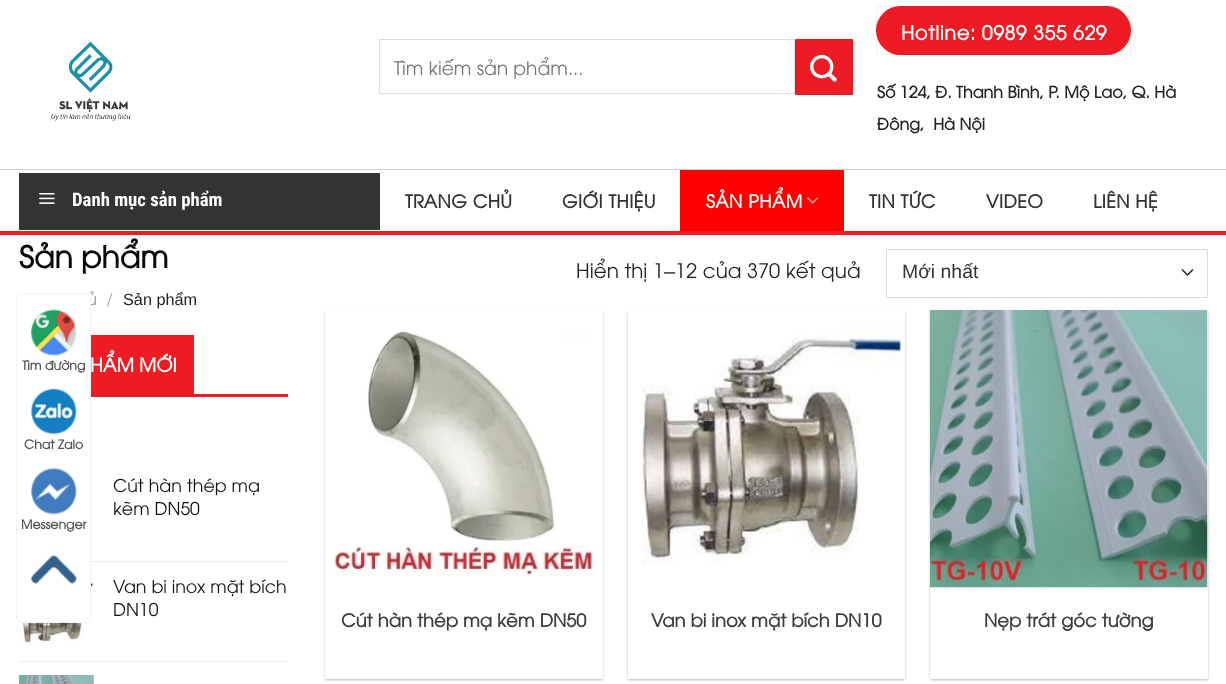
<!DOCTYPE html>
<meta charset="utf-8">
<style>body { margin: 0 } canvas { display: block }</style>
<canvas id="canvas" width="1226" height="684"></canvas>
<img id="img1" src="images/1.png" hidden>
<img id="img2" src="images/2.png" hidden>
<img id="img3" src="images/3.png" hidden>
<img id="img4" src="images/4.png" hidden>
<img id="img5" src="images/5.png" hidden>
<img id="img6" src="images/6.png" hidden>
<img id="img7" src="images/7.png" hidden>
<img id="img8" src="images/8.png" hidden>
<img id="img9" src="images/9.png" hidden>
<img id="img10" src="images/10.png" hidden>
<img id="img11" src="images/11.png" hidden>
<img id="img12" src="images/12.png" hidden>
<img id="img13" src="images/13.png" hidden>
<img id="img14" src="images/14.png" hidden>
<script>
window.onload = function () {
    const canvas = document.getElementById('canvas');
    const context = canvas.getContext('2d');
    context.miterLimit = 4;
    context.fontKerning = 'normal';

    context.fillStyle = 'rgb(255, 255, 255)';
    context.fillRect(0, 0, 1226, 684);
    context.drawImage(document.getElementById('img1'), 51, 41, 80, 80);
    context.strokeStyle = 'rgb(221, 221, 221)';
    context.strokeRect(379.5, 39.5, 415, 54);
    context.fillStyle = 'rgb(237, 28, 36)';
    context.beginPath();
    context.rect(795.5, 39.5, 57, 55);
    context.fill();
    context.strokeStyle = 'rgb(225, 27, 34)';
    context.stroke();
    context.drawImage(document.getElementById('img2'), 810, 54, 27, 28);
    context.beginPath();
    context.roundRect(876, 6, 255, 49, 24.5);
    context.fill();
    context.strokeStyle = 'rgba(0, 0, 0, 0.05)';
    context.strokeRect(876.5, 6.5, 254, 48);
    context.fillStyle = 'rgb(204, 204, 204)';
    context.fillRect(0, 169, 1226, 1);
    context.fillStyle = 'rgb(237, 28, 36)';
    context.fillRect(0, 231, 1226, 4);
    context.fillStyle = 'rgb(51, 51, 51)';
    context.fillRect(19, 173, 361, 57);
    context.drawImage(document.getElementById('img3'), 39, 193, 16, 11);
    context.fillStyle = 'rgb(255, 0, 0)';
    context.fillRect(680, 170, 164, 61);
    context.drawImage(document.getElementById('img4'), 807, 197, 12, 7);
    context.beginPath();
    context.moveTo(1182.5, 270);
    context.lineTo(1187.5, 275);
    context.lineTo(1192.5, 270);
    context.strokeStyle = 'rgb(51, 51, 51)';
    context.lineWidth = 1.7;
    context.lineCap = 'round';
    context.lineJoin = 'round';
    context.stroke();
    context.strokeStyle = 'rgb(221, 221, 221)';
    context.lineWidth = 1;
    context.lineJoin = 'miter';
    context.strokeRect(886.5, 249.5, 321, 48);
    context.fillStyle = 'rgb(237, 28, 34)';
    context.fillRect(91, 394, 197, 3);
    context.fillRect(91, 335, 103, 59);
    context.drawImage(document.getElementById('img5'), 91, 479, 1, 67);
    context.fillStyle = 'rgb(236, 236, 236)';
    context.fillRect(91, 561, 197, 1);
    context.drawImage(document.getElementById('img6'), 19, 578, 75, 67);
    context.fillRect(19, 661, 269, 1);
    context.drawImage(document.getElementById('img7'), 18, 675, 76, 9);
    context.fillStyle = 'rgba(0, 0, 0, 0.24)';
    context.filter = 'blur(1px)';
    context.beginPath();
    context.rect(325, 311, 278, 369);
    context.fill();
    context.filter = 'none';
    context.fillStyle = 'rgba(0, 0, 0, 0.12)';
    context.filter = 'blur(2px)';
    context.beginPath();
    context.rect(328, 314, 272, 364);
    context.fill();
    context.filter = 'none';
    context.fillStyle = 'rgb(255, 255, 255)';
    context.fillRect(325, 310, 278, 369);
    context.drawImage(document.getElementById('img8'), 332, 330, 263, 246);
    context.fillStyle = 'rgba(0, 0, 0, 0.24)';
    context.filter = 'blur(1px)';
    context.beginPath();
    context.rect(628, 311, 277, 369);
    context.fill();
    context.filter = 'none';
    context.fillStyle = 'rgba(0, 0, 0, 0.12)';
    context.filter = 'blur(2px)';
    context.beginPath();
    context.rect(630, 314, 273, 364);
    context.fill();
    context.filter = 'none';
    context.fillStyle = 'rgb(255, 255, 255)';
    context.fillRect(628, 310, 277, 369);
    context.drawImage(document.getElementById('img9'), 642, 325, 263, 239);
    context.fillStyle = 'rgba(0, 0, 0, 0.24)';
    context.filter = 'blur(1px)';
    context.beginPath();
    context.rect(930, 311, 278, 369);
    context.fill();
    context.filter = 'none';
    context.fillStyle = 'rgba(0, 0, 0, 0.12)';
    context.filter = 'blur(2px)';
    context.beginPath();
    context.rect(933, 314, 272, 364);
    context.fill();
    context.filter = 'none';
    context.fillStyle = 'rgb(255, 255, 255)';
    context.fillRect(930, 310, 278, 369);
    context.drawImage(document.getElementById('img10'), 930, 310, 278, 278);
    context.font = '18.75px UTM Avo';
    context.fillStyle = 'rgb(117, 117, 117)';
    context.fillText('Tìm kiếm sản phẩm...', 394, 75);
    context.letterSpacing = '0.6px';
    context.font = 'bold 19.4px UTM Avo';
    context.fillStyle = 'rgb(255, 255, 255)';
    context.fillText('Hotline: 0989 355 629', 901, 40);
    context.letterSpacing = '0px';
    context.font = 'bold 16px UTM Avo';
    context.fillStyle = 'rgb(34, 34, 34)';
    context.fillText('Số 124, Đ. Thanh Bình, P. Mộ Lao, Q. Hà', 877, 98);
    context.fillText('Đông,  Hà Nội', 877, 130);
    context.font = 'bold 18.75px Roboto Condensed';
    context.fillStyle = 'rgb(255, 255, 255)';
    context.fillText('Danh mục sản phẩm', 72, 206);
    context.letterSpacing = '0.4px';
    context.font = 'bold 18px UTM Avo';
    context.fillStyle = 'rgb(51, 51, 51)';
    context.fillText('TRANG CHỦ', 405, 208);
    context.fillText('GIỚI THIỆU', 562, 208);
    context.fillStyle = 'rgb(255, 255, 255)';
    context.fillText('SẢN PHẨM', 706, 208);
    context.fillStyle = 'rgb(51, 51, 51)';
    context.fillText('TIN TỨC', 869, 208);
    context.fillText('VIDEO', 986, 208);
    context.fillText('LIÊN HỆ', 1093, 208);
    context.letterSpacing = '0px';
    context.font = 'bold 30px UTM Avo';
    context.fillStyle = 'rgb(10, 10, 10)';
    context.fillText('Sản phẩm', 19, 268);
    context.font = '16.25px UTM Avo';
    context.fillStyle = 'rgb(148, 148, 148)';
    context.fillText('ủ', 87, 305);
    context.fillStyle = 'rgb(178, 178, 178)';
    context.fillText('/', 106, 305);
    context.font = '16.25px Liberation Sans';
    context.fillStyle = 'rgb(34, 34, 34)';
    context.fillText('Sản phẩm', 123, 305);
    context.font = '20px UTM Avo';
    context.fillText('Hiển thị 1', 576, 278);
    context.font = '20px Liberation Sans';
    context.fillText('–', 664, 278);
    context.font = '20px UTM Avo';
    context.fillText('12 của 370 kết quả', 675, 278);
    context.font = '19.4px Liberation Sans';
    context.fillStyle = 'rgb(51, 51, 51)';
    context.fillText('Mới nhất', 902, 278);
    context.font = 'bold 18.75px UTM Avo';
    context.fillStyle = 'rgb(255, 255, 255)';
    context.fillText('HẨM MỚI', 90, 372);
    context.font = '17.5px UTM Avo';
    context.fillStyle = 'rgb(17, 17, 17)';
    context.fillText('Cút hàn thép mạ', 113, 492);
    context.fillText('kẽm DN50', 113, 515);
    context.fillText('Van bi inox mặt bích', 113, 593);
    context.fillText('DN10', 113, 616);
    context.font = 'bold 18px UTM Avo';
    context.fillStyle = 'rgb(60, 60, 60)';
    context.fillText('Cút hàn thép mạ kẽm DN50', 341, 627);
    context.fillText('Van bi inox mặt bích DN10', 651, 627);
    context.fillText('Nẹp trát góc tường', 984, 627);
    context.fillStyle = 'rgb(255, 255, 255)';
    context.beginPath();
    context.roundRect(16.5, 293.5, 74, 329, 5.5);
    context.fill();
    context.strokeStyle = 'rgb(242, 242, 242)';
    context.stroke();
    context.drawImage(document.getElementById('img11'), 31, 309, 46, 47);
    context.font = 'bold 12.5px UTM Avo';
    context.fillStyle = 'rgb(81, 81, 81)';
    context.fillText('Tìm đường', 22, 370);
    context.drawImage(document.getElementById('img12'), 31, 388, 46, 46);
    context.fillText('Chat Zalo', 24, 449);
    context.drawImage(document.getElementById('img13'), 31, 468, 46, 47);
    context.fillText('Messenger', 21, 529);
    context.drawImage(document.getElementById('img14'), 31, 555, 46, 29);
};
</script>
